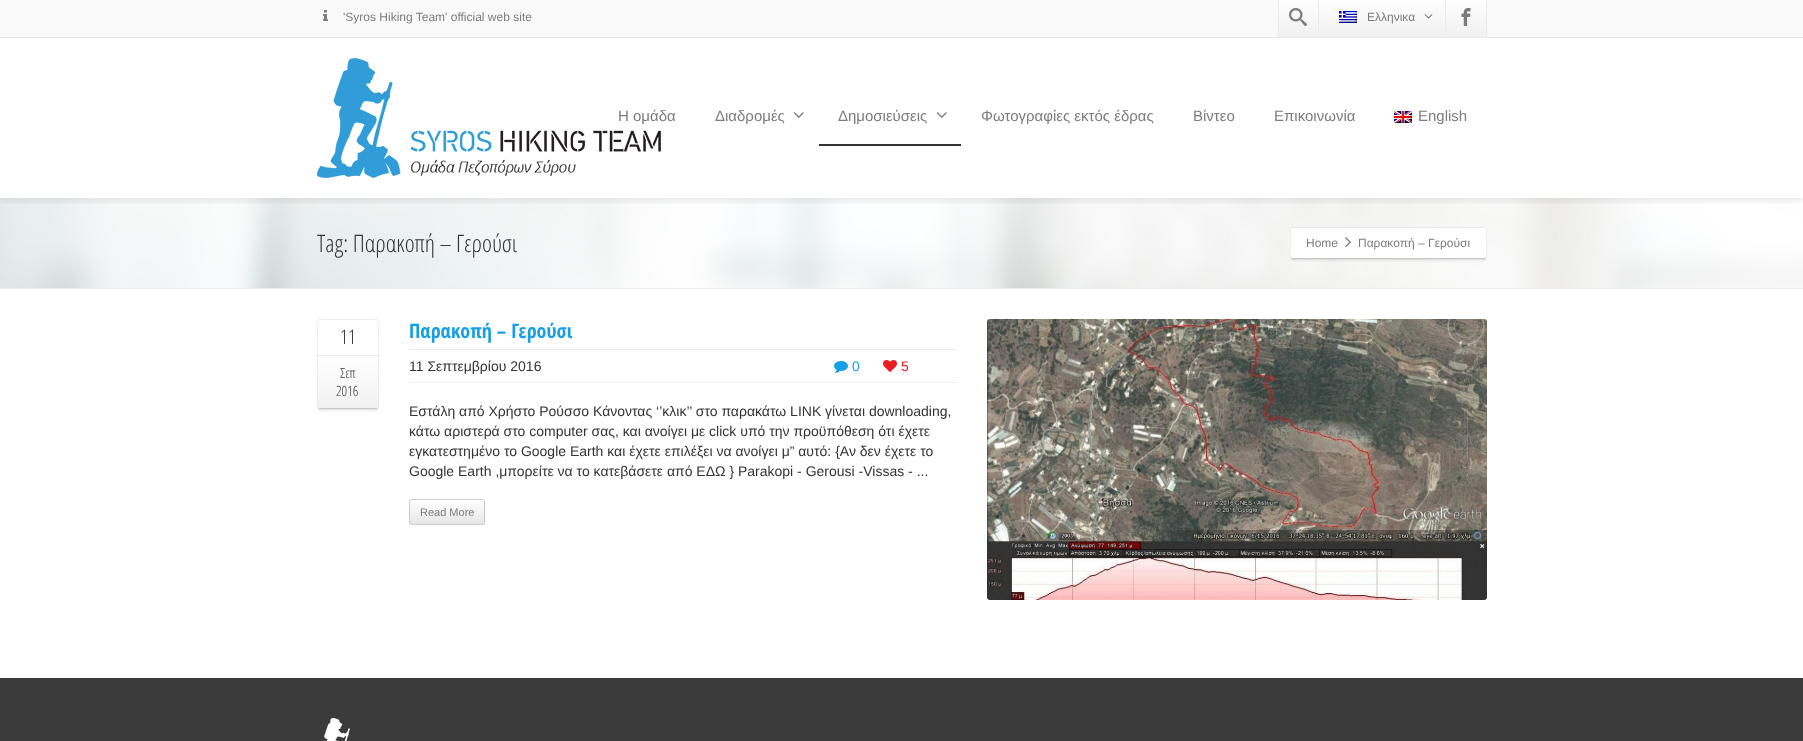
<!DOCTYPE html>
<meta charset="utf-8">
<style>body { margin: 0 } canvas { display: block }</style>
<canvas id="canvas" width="1803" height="741"></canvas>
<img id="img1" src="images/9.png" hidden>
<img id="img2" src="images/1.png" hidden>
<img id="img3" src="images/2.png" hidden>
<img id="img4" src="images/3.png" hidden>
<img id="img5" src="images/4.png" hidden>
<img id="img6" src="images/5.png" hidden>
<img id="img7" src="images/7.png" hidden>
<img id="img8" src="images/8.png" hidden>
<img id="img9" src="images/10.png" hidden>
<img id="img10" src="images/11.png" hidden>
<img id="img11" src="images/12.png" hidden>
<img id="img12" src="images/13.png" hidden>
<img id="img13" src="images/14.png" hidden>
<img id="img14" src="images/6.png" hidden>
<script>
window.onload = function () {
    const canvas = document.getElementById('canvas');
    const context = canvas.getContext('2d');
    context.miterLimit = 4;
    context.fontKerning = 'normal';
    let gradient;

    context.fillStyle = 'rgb(255, 255, 255)';
    context.fillRect(0, 0, 1803, 741);
    context.drawImage(document.getElementById('img1'), 0, 198, 1803, 90);
    context.save();
    context.beginPath();
    context.rect(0, 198, 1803, 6);
    context.clip();
    context.fillStyle = 'rgba(0, 0, 0, 0.1)';
    context.filter = 'blur(5px)';
    context.beginPath();
    context.rect(0, 40, 1803, 160);
    context.fill();
    context.filter = 'none';
    context.restore();
    context.fillStyle = 'rgb(249, 249, 249)';
    context.fillRect(0, 0, 1803, 37);
    context.fillStyle = 'rgb(235, 235, 235)';
    context.fillRect(0, 37, 1803, 1);
    context.drawImage(document.getElementById('img2'), 323, 10, 5, 11);
    context.fillRect(1318, 0, 1, 37);
    context.fillRect(1278, 0, 1, 37);
    gradient = context.createLinearGradient(1298, -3, 1298, 37);
    gradient.addColorStop(0, 'rgb(255, 255, 255)');
    gradient.addColorStop(1, 'rgb(241, 241, 241)');
    context.fillStyle = gradient;
    context.fillRect(1279, 0, 38, 37);
    context.drawImage(document.getElementById('img3'), 1289, 8, 18, 18);
    gradient = context.createLinearGradient(1383, -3, 1383, 37);
    gradient.addColorStop(0, 'rgb(255, 255, 255)');
    gradient.addColorStop(1, 'rgb(241, 241, 241)');
    context.fillStyle = gradient;
    context.fillRect(1319, 0, 126, 37);
    context.drawImage(document.getElementById('img4'), 1339, 11, 18, 12);
    context.drawImage(document.getElementById('img5'), 1424, 14, 9, 5);
    gradient = context.createLinearGradient(1466, -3, 1466, 37);
    gradient.addColorStop(0, 'rgb(255, 255, 255)');
    gradient.addColorStop(1, 'rgb(241, 241, 241)');
    context.fillStyle = gradient;
    context.fillRect(1446, 0, 40, 37);
    context.fillStyle = 'rgb(235, 235, 235)';
    context.fillRect(1486, 0, 1, 37);
    context.fillRect(1445, 0, 1, 37);
    context.drawImage(document.getElementById('img6'), 1461, 8, 10, 18);
    context.drawImage(document.getElementById('img7'), 793, 112, 11, 6);
    context.fillStyle = 'rgb(51, 51, 51)';
    context.fillRect(819, 144, 142, 2);
    context.drawImage(document.getElementById('img7'), 936, 112, 11, 6);
    context.drawImage(document.getElementById('img8'), 1394, 111, 18, 12);
    context.fillStyle = 'rgb(235, 235, 235)';
    context.fillRect(0, 288, 1803, 1);
    context.fillStyle = 'rgba(0, 0, 0, 0.07)';
    context.beginPath();
    context.moveTo(1290, 256);
    context.bezierCurveTo(1290, 258, 1291, 260, 1293, 260);
    context.lineTo(1484, 260);
    context.bezierCurveTo(1486, 260, 1487, 258, 1487, 256);
    context.bezierCurveTo(1487, 258, 1486, 259, 1484, 259);
    context.lineTo(1293, 259);
    context.bezierCurveTo(1291, 259, 1290, 258, 1290, 256);
    context.closePath();
    context.fill();
    context.fillStyle = 'rgba(0, 0, 0, 0.03)';
    context.beginPath();
    context.moveTo(1290, 256);
    context.lineTo(1290, 259);
    context.bezierCurveTo(1290, 261, 1291, 262, 1293, 262);
    context.lineTo(1484, 262);
    context.bezierCurveTo(1486, 262, 1487, 261, 1487, 259);
    context.lineTo(1487, 256);
    context.bezierCurveTo(1487, 258, 1486, 259, 1484, 259);
    context.lineTo(1293, 259);
    context.bezierCurveTo(1291, 259, 1290, 258, 1290, 256);
    context.closePath();
    context.fill();
    context.fillStyle = 'rgb(255, 255, 255)';
    context.beginPath();
    context.roundRect(1290, 227, 197, 32, 3);
    context.fill();
    context.beginPath();
    context.moveTo(1486, 258);
    context.lineTo(1484, 258.5);
    context.lineTo(1293, 258.5);
    context.lineTo(1291, 258);
    context.strokeStyle = 'rgba(0, 0, 0, 0.22)';
    context.stroke();
    context.beginPath();
    context.moveTo(1291, 258);
    context.bezierCurveTo(1289.5, 256, 1290.5, 245.5, 1290.5, 243);
    context.lineTo(1290.5, 234.5);
    context.bezierCurveTo(1290.5, 232.5, 1289.5, 227.5, 1293, 227.5);
    context.lineTo(1484, 227.5);
    context.bezierCurveTo(1487.5, 227.5, 1486.5, 232.5, 1486.5, 234.5);
    context.lineTo(1486.5, 243);
    context.bezierCurveTo(1486.5, 245.5, 1487.5, 256, 1486, 258);
    context.strokeStyle = 'rgb(235, 235, 235)';
    context.stroke();
    context.drawImage(document.getElementById('img9'), 1345, 237, 6, 11);
    context.fillStyle = 'rgb(237, 237, 237)';
    context.beginPath();
    context.moveTo(317, 406);
    context.bezierCurveTo(317, 412, 325, 410, 329, 410);
    context.lineTo(367, 410);
    context.bezierCurveTo(371, 410, 379, 412, 379, 406);
    context.bezierCurveTo(379, 408, 378, 409, 376, 409);
    context.lineTo(320, 409);
    context.bezierCurveTo(318, 409, 317, 408, 317, 406);
    context.closePath();
    context.fill();
    context.fillStyle = 'rgba(0, 0, 0, 0.03)';
    context.beginPath();
    context.moveTo(317, 406);
    context.bezierCurveTo(317, 414, 320, 412, 329, 412);
    context.lineTo(367, 412);
    context.bezierCurveTo(376, 412, 379, 414, 379, 406);
    context.bezierCurveTo(379, 408, 378, 409, 376, 409);
    context.lineTo(320, 409);
    context.bezierCurveTo(318, 409, 317, 408, 317, 406);
    context.closePath();
    context.fill();
    context.fillStyle = 'rgb(255, 255, 255)';
    context.beginPath();
    context.roundRect(317, 319, 62, 90, 3);
    context.fill();
    context.beginPath();
    context.moveTo(378, 408);
    context.lineTo(376, 408.5);
    context.lineTo(320, 408.5);
    context.lineTo(318, 408);
    context.strokeStyle = 'rgba(0, 0, 0, 0.22)';
    context.stroke();
    context.beginPath();
    context.moveTo(318, 408);
    context.lineTo(317.5, 406);
    context.lineTo(317.5, 336);
    context.bezierCurveTo(317.5, 318, 313.5, 319.5, 329.5, 319.5);
    context.lineTo(366.5, 319.5);
    context.bezierCurveTo(382.5, 319.5, 378.5, 318, 378.5, 336);
    context.lineTo(378.5, 406);
    context.lineTo(378, 408);
    context.strokeStyle = 'rgb(235, 235, 235)';
    context.stroke();
    gradient = context.createLinearGradient(348, 356, 348, 408);
    gradient.addColorStop(0, 'rgb(255, 255, 255)');
    gradient.addColorStop(1, 'rgb(241, 241, 241)');
    context.fillStyle = gradient;
    context.beginPath();
    context.roundRect(318, 356, 60, 52, [0, 0, 3, 3]);
    context.fill();
    context.fillStyle = 'rgb(235, 235, 235)';
    context.fillRect(318, 355, 60, 1);
    context.fillRect(409, 349, 548, 1);
    context.fillRect(409, 382, 548, 1);
    context.drawImage(document.getElementById('img10'), 834, 361, 14, 12);
    context.drawImage(document.getElementById('img11'), 883, 360, 14, 12);
    context.save();
    context.beginPath();
    context.rect(409, 319, 548, 206);
    context.clip();
    context.beginPath();
    context.moveTo(409, 522);
    context.bezierCurveTo(409, 529, 420, 526, 424, 526);
    context.lineTo(470, 526);
    context.bezierCurveTo(474, 526, 485, 529, 485, 522);
    context.bezierCurveTo(485, 524, 484, 525, 482, 525);
    context.lineTo(412, 525);
    context.bezierCurveTo(410, 525, 409, 524, 409, 522);
    context.closePath();
    context.fill();
    context.restore();
    context.save();
    context.beginPath();
    context.rect(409, 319, 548, 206);
    context.clip();
    context.fillStyle = 'rgba(0, 0, 0, 0.05)';
    context.filter = 'blur(1px)';
    context.beginPath();
    context.roundRect(409, 501, 76, 26, 3);
    context.fill();
    context.filter = 'none';
    context.restore();
    context.save();
    context.beginPath();
    context.roundRect(409, 499, 76, 26, 3);
    context.clip();
    gradient = context.createLinearGradient(447, 500, 447, 524);
    gradient.addColorStop(0, 'rgb(255, 255, 255)');
    gradient.addColorStop(1, 'rgb(230, 230, 230)');
    context.fillStyle = gradient;
    context.fillRect(409, 500, 76, 24);
    context.restore();
    context.beginPath();
    context.roundRect(409.5, 499.5, 75, 25, 2.5);
    context.strokeStyle = 'rgb(204, 204, 204)';
    context.stroke();
    context.drawImage(document.getElementById('img12'), 987, 319, 500, 281);
    context.fillStyle = 'rgb(59, 59, 59)';
    context.fillRect(0, 678, 1803, 63);
    context.drawImage(document.getElementById('img13'), 324, 718, 26, 23);
    context.font = '12px Liberation Sans';
    context.fillStyle = 'rgb(124, 124, 124)';
    context.fillText('\'Syros Hiking Team\' official web site', 343, 21);
    context.fillText('Ελληνικα', 1367, 21);
    context.font = '15px Liberation Sans';
    context.fillText('Η ομάδα', 618, 121);
    context.drawImage(document.getElementById('img14'), 317, 58, 344, 120);
    context.fillText('Διαδρομές', 715, 121);
    context.fillText('Δημοσιεύσεις', 838, 121);
    context.fillText('Φωτογραφίες εκτός έδρας', 981, 121);
    context.fillText('Βίντεο', 1193, 121);
    context.fillText('Επικοινωνία', 1274, 121);
    context.fillText('English', 1418, 121);
    context.font = '300 24px Open Sans Condensed';
    context.fillStyle = 'rgb(51, 51, 51)';
    context.fillText('Tag: Παρακοπή – Γερούσι', 317, 252);
    context.font = '12px Liberation Sans';
    context.fillStyle = 'rgb(124, 124, 124)';
    context.fillText('Home', 1306, 247);
    context.fillText('Παρακοπή – Γερούσι', 1358, 247);
    context.font = '300 20px Open Sans Condensed';
    context.fillStyle = 'rgb(51, 51, 51)';
    context.fillText('11', 340, 344);
    context.font = '300 14px Open Sans Condensed';
    context.fillText('Σεπ', 340, 378);
    context.fillText('2016', 336, 396);
    context.font = 'bold 20px Open Sans Condensed';
    context.fillStyle = 'rgb(22, 159, 230)';
    context.fillText('Παρακοπή – Γερούσι', 409, 338);
    context.font = '14px Liberation Sans';
    context.fillStyle = 'rgb(51, 51, 51)';
    context.fillText('11 Σεπτεμβρίου 2016', 409, 371);
    context.fillStyle = 'rgb(22, 159, 230)';
    context.fillText('0', 852, 371);
    context.fillStyle = 'rgb(237, 28, 36)';
    context.fillText('5', 901, 371);
    context.fillStyle = 'rgb(51, 51, 51)';
    context.fillText('Εστάλη από Χρήστο Ρούσσο Κάνοντας ‘’κλικ’’ στο παρακάτω LINK γίνεται downloading,', 409, 416);
    context.fillText('κάτω αριστερά στο computer σας, και ανοίγει με click υπό την προϋπόθεση ότι έχετε', 409, 436);
    context.fillText('εγκατεστημένο το Google Earth και έχετε επιλέξει να ανοίγει μ” αυτό: {Αν δεν έχετε το', 409, 456);
    context.fillText('Google Earth ,μπορείτε να το κατεβάσετε από ΕΔΩ } Parakopi - Gerousi -Vissas - ...', 409, 476);
    context.font = '11px Liberation Sans';
    context.fillStyle = 'rgb(124, 124, 124)';
    context.fillText('Read More', 420, 516);
};
</script>
